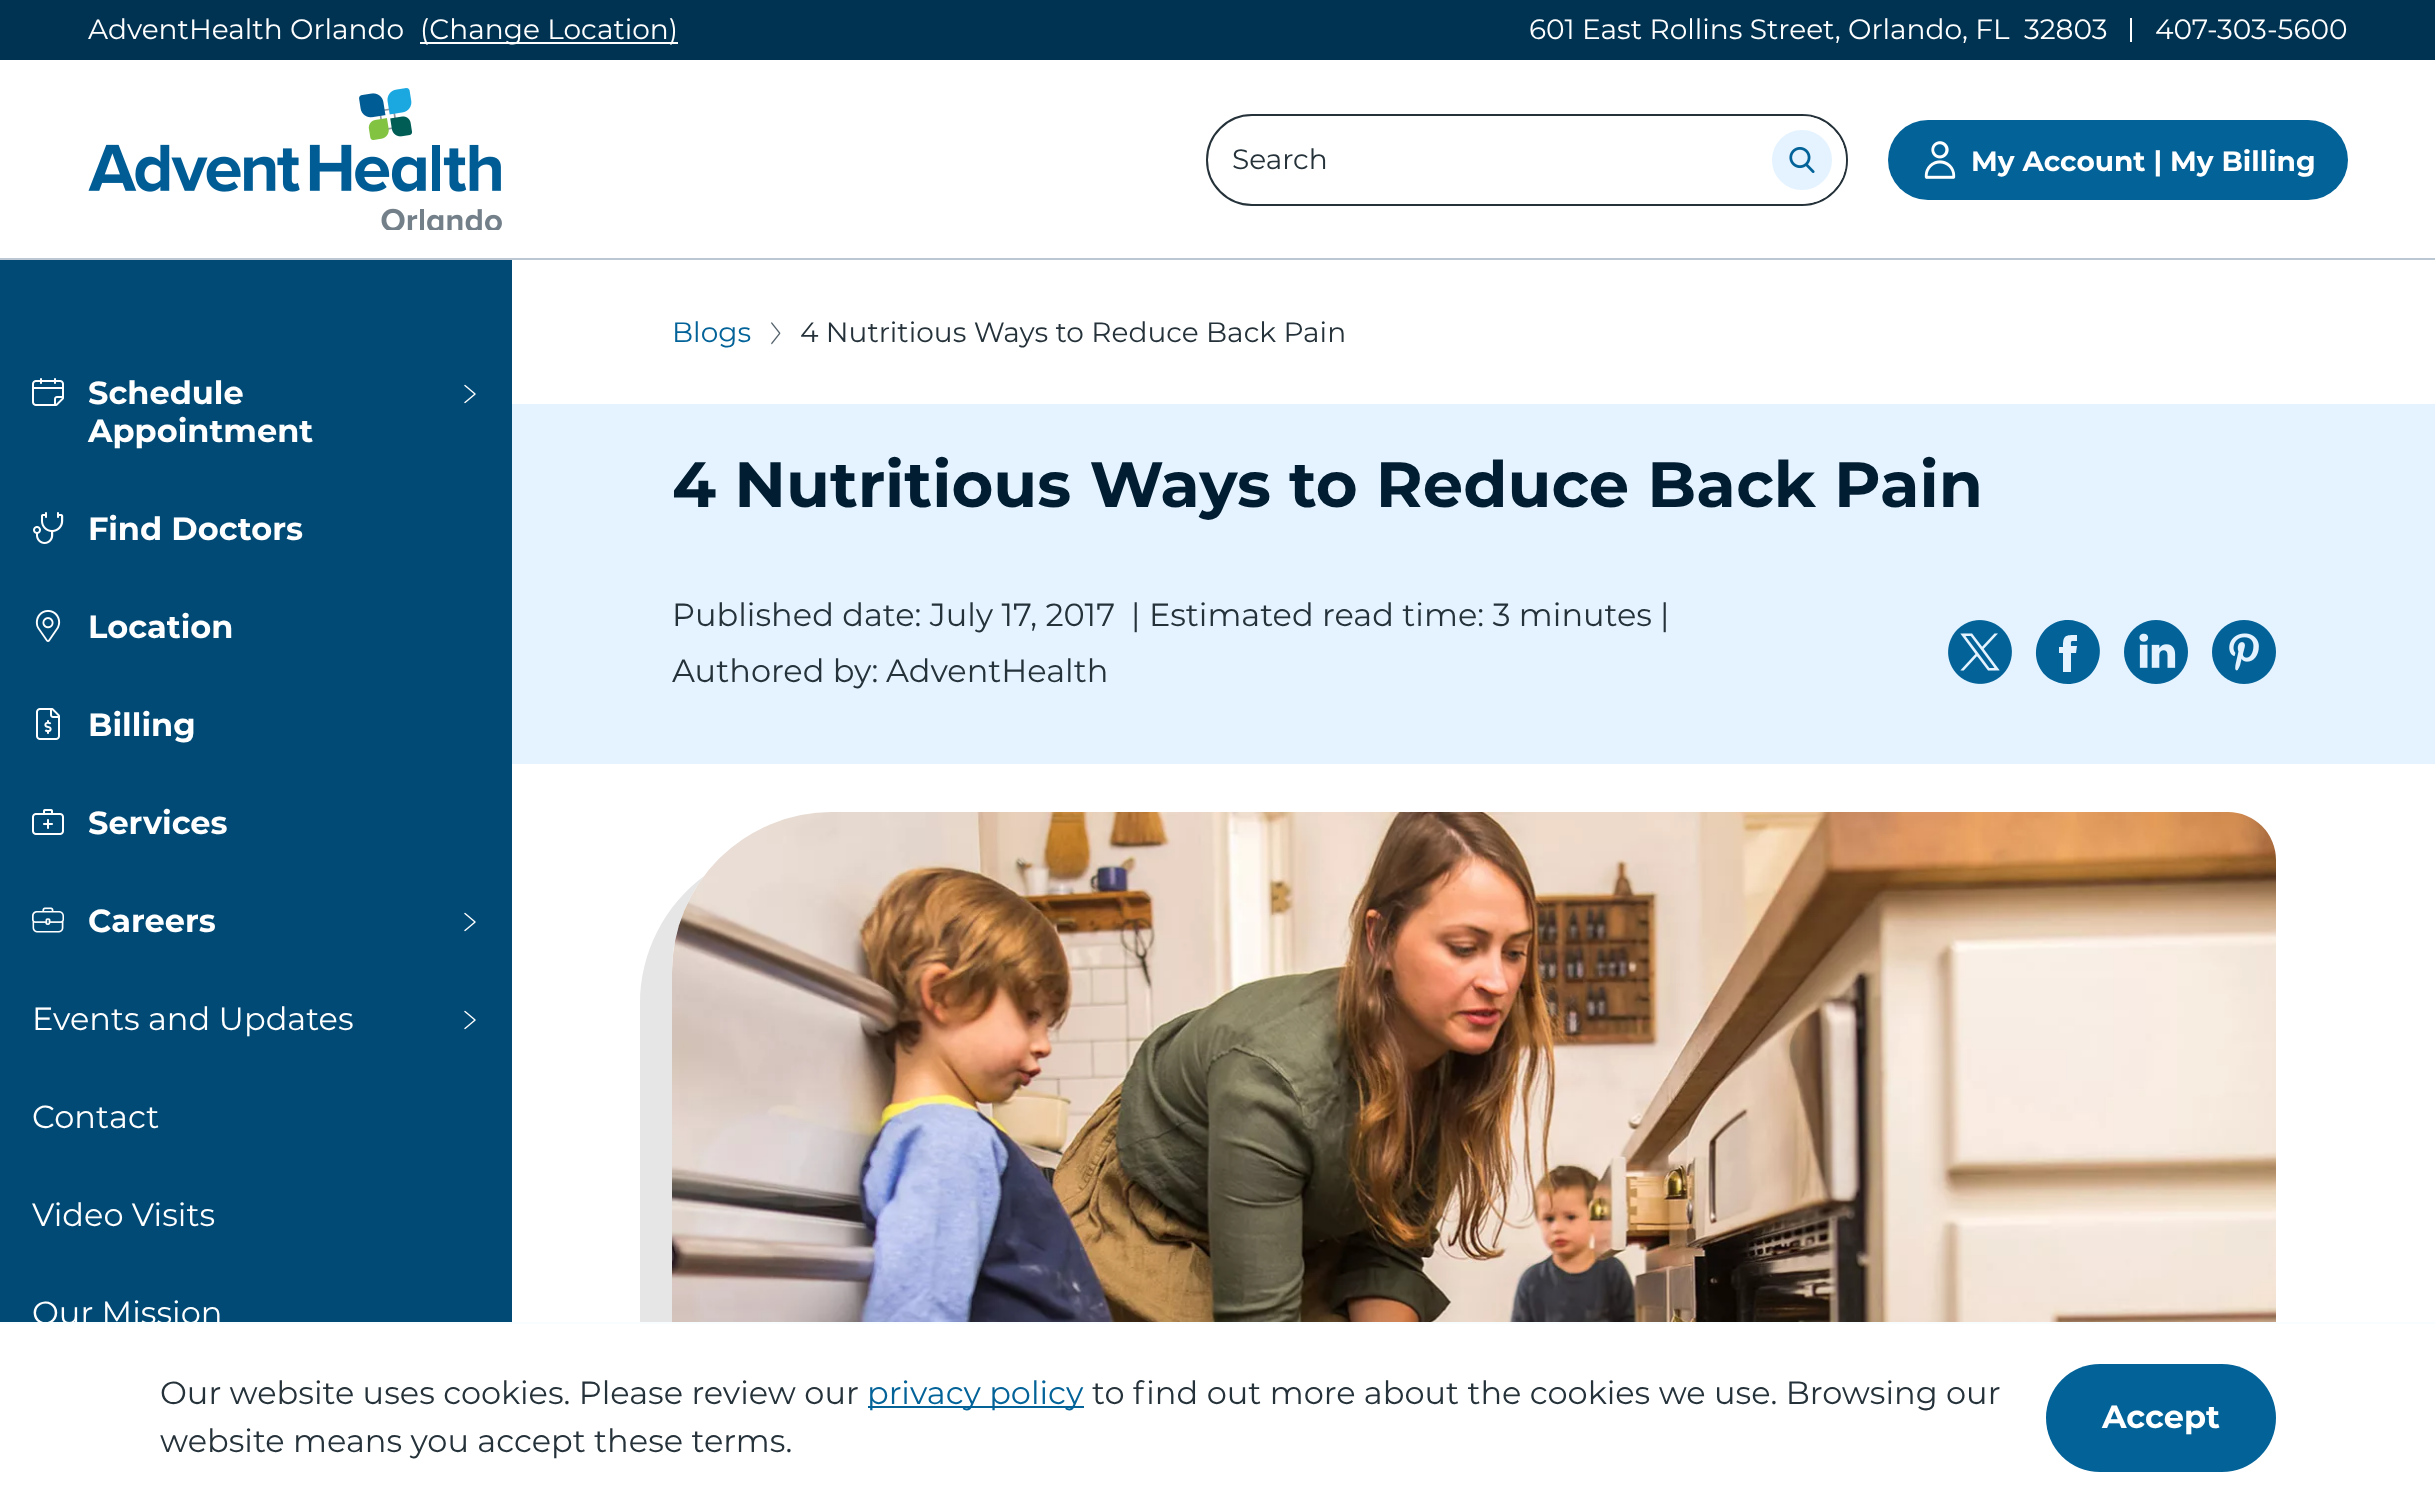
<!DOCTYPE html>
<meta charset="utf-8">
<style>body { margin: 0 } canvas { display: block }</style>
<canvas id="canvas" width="2435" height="1512"></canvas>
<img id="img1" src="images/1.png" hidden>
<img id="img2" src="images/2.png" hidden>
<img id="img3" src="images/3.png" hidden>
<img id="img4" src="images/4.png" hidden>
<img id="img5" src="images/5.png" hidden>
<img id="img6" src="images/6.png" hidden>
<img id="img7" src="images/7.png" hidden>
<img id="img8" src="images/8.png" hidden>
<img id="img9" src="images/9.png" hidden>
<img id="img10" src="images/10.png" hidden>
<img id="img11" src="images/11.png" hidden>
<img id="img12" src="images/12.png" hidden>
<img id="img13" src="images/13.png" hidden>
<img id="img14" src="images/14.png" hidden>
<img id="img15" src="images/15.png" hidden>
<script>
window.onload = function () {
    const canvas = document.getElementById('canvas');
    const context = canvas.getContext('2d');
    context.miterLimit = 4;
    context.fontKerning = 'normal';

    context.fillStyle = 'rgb(255, 255, 255)';
    context.fillRect(0, 0, 2435, 1512);
    context.fillStyle = 'rgb(0, 51, 82)';
    context.fillRect(0, 0, 2435, 60);
    context.fillStyle = 'rgb(255, 255, 255)';
    context.fillRect(420, 42, 258, 2);
    context.fillRect(2130, 18, 2, 24);
    context.fillStyle = 'rgb(187, 200, 211)';
    context.fillRect(0, 258, 2435, 2);
    context.drawImage(document.getElementById('img1'), 88, 88, 414, 142);
    context.beginPath();
    context.roundRect(1207, 115, 640, 90, 45);
    context.strokeStyle = 'rgb(37, 50, 58)';
    context.lineWidth = 2;
    context.stroke();
    context.fillStyle = 'rgb(228, 243, 255)';
    context.beginPath();
    context.arc(1802, 160, 37, 0, 2 * Math.PI);
    context.fill();
    context.strokeStyle = 'rgb(255, 255, 255)';
    context.lineWidth = 14;
    context.stroke();
    context.drawImage(document.getElementById('img2'), 1789, 147, 26, 26);
    context.fillStyle = 'rgb(3, 99, 153)';
    context.beginPath();
    context.roundRect(1888, 120, 460, 80, 40);
    context.fill();
    context.drawImage(document.getElementById('img3'), 1924, 141, 32, 38);
    context.fillStyle = 'rgb(0, 74, 117)';
    context.fillRect(0, 260, 512, 1062);
    context.drawImage(document.getElementById('img4'), 32, 378, 32, 28);
    context.drawImage(document.getElementById('img5'), 464, 384, 12, 20);
    context.drawImage(document.getElementById('img6'), 33, 512, 31, 32);
    context.drawImage(document.getElementById('img7'), 35, 610, 26, 32);
    context.drawImage(document.getElementById('img8'), 36, 708, 24, 32);
    context.drawImage(document.getElementById('img9'), 32, 809, 32, 26);
    context.drawImage(document.getElementById('img10'), 32, 907, 32, 26);
    context.drawImage(document.getElementById('img5'), 464, 912, 12, 20);
    context.drawImage(document.getElementById('img5'), 464, 1010, 12, 20);
    context.drawImage(document.getElementById('img11'), 771, 322, 10, 23);
    context.fillStyle = 'rgb(228, 243, 255)';
    context.fillRect(512, 404, 1923, 360);
    context.drawImage(document.getElementById('img12'), 1948, 620, 64, 64);
    context.fillStyle = 'rgb(3, 99, 153)';
    context.beginPath();
    context.moveTo(2068, 620);
    context.bezierCurveTo(2037, 620, 2024, 661, 2050, 679);
    context.bezierCurveTo(2055, 682, 2062, 684, 2068, 684);
    context.bezierCurveTo(2099, 684, 2112, 643, 2086, 625);
    context.bezierCurveTo(2081, 622, 2074, 620, 2068, 620);
    context.closePath();
    context.moveTo(2076, 653);
    context.lineTo(2071, 653);
    context.lineTo(2071, 672);
    context.lineTo(2063, 672);
    context.lineTo(2063, 653);
    context.lineTo(2059, 653);
    context.lineTo(2059, 647);
    context.lineTo(2063, 647);
    context.bezierCurveTo(2063, 635, 2065, 635, 2077, 635);
    context.lineTo(2077, 641);
    context.bezierCurveTo(2070, 641, 2071, 640, 2071, 646);
    context.lineTo(2077, 646);
    context.closePath();
    context.moveTo(2076, 653);
    context.closePath();
    context.fill();
    context.drawImage(document.getElementById('img13'), 2124, 620, 64, 64);
    context.drawImage(document.getElementById('img14'), 2212, 620, 64, 64);
    context.fillStyle = 'rgb(230, 230, 230)';
    context.beginPath();
    context.moveTo(704, 876);
    context.bezierCurveTo(665, 905, 640, 952, 640, 1004);
    context.lineTo(640, 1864);
    context.bezierCurveTo(640, 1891, 661, 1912, 688, 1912);
    context.lineTo(2084, 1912);
    context.bezierCurveTo(2136, 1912, 2183, 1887, 2212, 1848);
    context.bezierCurveTo(2185, 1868, 2152, 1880, 2116, 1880);
    context.lineTo(720, 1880);
    context.bezierCurveTo(693, 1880, 672, 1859, 672, 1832);
    context.lineTo(672, 972);
    context.bezierCurveTo(672, 936, 684, 903, 704, 876);
    context.closePath();
    context.fill();
    context.drawImage(document.getElementById('img15'), 672, 812, 1604, 510);
    context.fillStyle = 'rgb(255, 255, 255)';
    context.fillRect(640, 1324, 32, 188);
    context.fillStyle = 'rgb(3, 99, 153)';
    context.fillRect(868, 1406, 216, 2);
    context.beginPath();
    context.roundRect(2046, 1364, 230, 108, 54);
    context.fill();
    context.font = '28px Montserrat';
    context.fillStyle = 'rgb(255, 255, 255)';
    context.fillText('AdventHealth Orlando', 88, 39);
    context.fillText('(Change Location)', 420, 39);
    context.fillText('601 East Rollins Street, Orlando', 1529, 39);
    context.fillText(', FL', 1962, 39);
    context.fillText('32803', 2024, 39);
    context.fillText('407-303-5600', 2155, 39);
    context.fillStyle = 'rgb(37, 50, 58)';
    context.fillText('Search', 1232, 169);
    context.font = 'bold 28px Montserrat';
    context.fillStyle = 'rgb(255, 255, 255)';
    context.fillText('My Account | My Billing', 1971, 171);
    context.font = 'bold 32px Montserrat';
    context.fillText('Schedule', 88, 404);
    context.fillText('Appointment', 88, 442);
    context.fillText('Find Doctors', 88, 540);
    context.fillText('Location', 88, 638);
    context.fillText('Billing', 88, 736);
    context.fillText('Services', 88, 834);
    context.fillText('Careers', 88, 932);
    context.font = '32px Montserrat';
    context.fillText('Events and Updates', 32, 1030);
    context.fillText('Contact', 32, 1128);
    context.fillText('Video Visits', 32, 1226);
    context.fillText('Our Mission', 32, 1324);
    context.font = '28px Montserrat';
    context.fillStyle = 'rgb(3, 99, 153)';
    context.fillText('Blogs', 672, 342);
    context.fillStyle = 'rgb(37, 50, 58)';
    context.fillText('4 Nutritious Ways to Reduce Back Pain', 800, 342);
    context.font = 'bold 64px Montserrat';
    context.fillStyle = 'rgb(0, 29, 50)';
    context.fillText('4 Nutritious Ways to Reduce Back Pain', 672, 507);
    context.font = '32px Montserrat';
    context.fillStyle = 'rgb(37, 50, 58)';
    context.fillText('Published date: July 17, 2017', 672, 626);
    context.fillText('|', 1131, 626);
    context.fillText('Estimated read time: 3 minutes', 1149, 626);
    context.fillText('|', 1660, 626);
    context.fillText('Authored by:', 672, 682);
    context.fillText('AdventHealth', 886, 682);
    context.fillStyle = 'rgb(248, 253, 255)';
    context.fillRect(0, 1322, 2435, 2);
    context.fillStyle = 'rgb(37, 50, 58)';
    context.fillText('Our website uses cookies. Please review our', 160, 1404);
    context.fillStyle = 'rgb(3, 99, 153)';
    context.fillText('privacy policy', 867, 1404);
    context.fillStyle = 'rgb(37, 50, 58)';
    context.fillText('to find out more about the cookies we use. Browsing our', 1092, 1404);
    context.fillText('website means you accept these terms.', 160, 1452);
    context.font = 'bold 32px Montserrat';
    context.fillStyle = 'rgb(255, 255, 255)';
    context.fillText('Accept', 2102, 1428);
};
</script>
